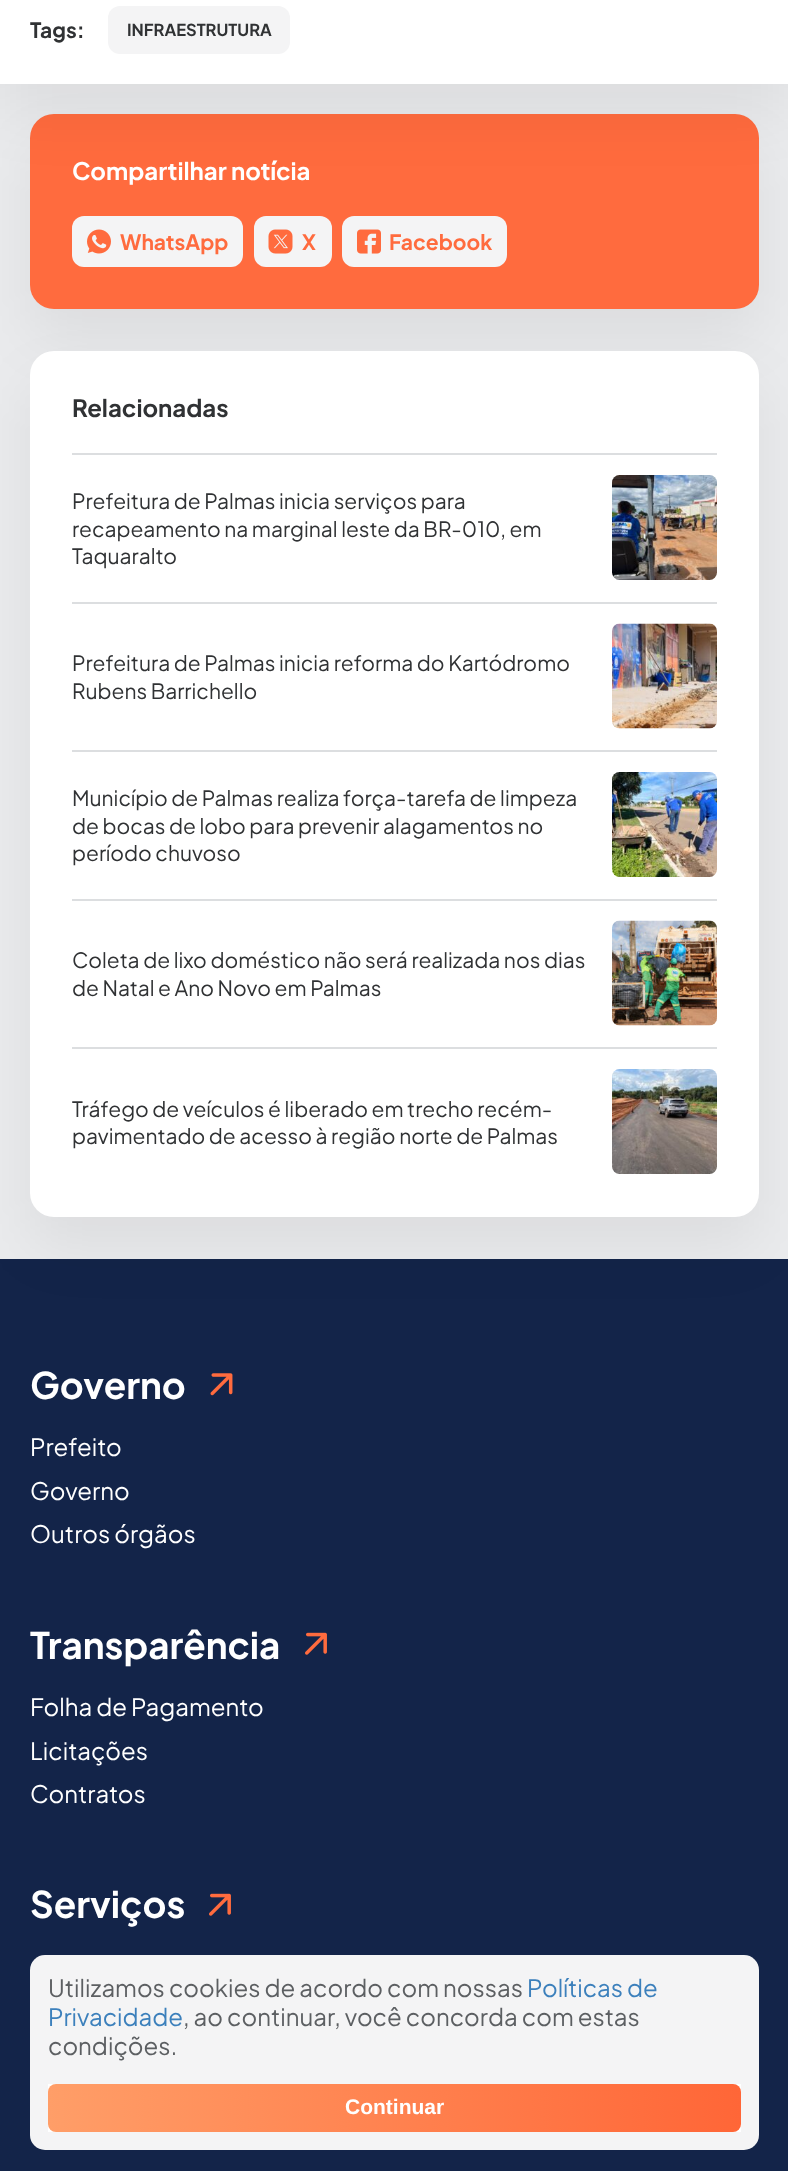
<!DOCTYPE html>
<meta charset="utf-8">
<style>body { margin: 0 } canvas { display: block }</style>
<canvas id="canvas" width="788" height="2171"></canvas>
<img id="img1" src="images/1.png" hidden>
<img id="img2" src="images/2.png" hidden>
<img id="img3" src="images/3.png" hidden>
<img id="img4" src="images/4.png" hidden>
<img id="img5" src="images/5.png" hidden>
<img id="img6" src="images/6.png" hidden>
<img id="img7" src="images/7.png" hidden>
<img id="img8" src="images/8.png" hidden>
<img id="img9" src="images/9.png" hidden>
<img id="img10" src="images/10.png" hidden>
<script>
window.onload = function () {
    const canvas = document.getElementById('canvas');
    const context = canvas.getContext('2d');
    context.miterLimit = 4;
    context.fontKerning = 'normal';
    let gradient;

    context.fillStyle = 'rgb(234, 235, 237)';
    context.fillRect(0, 0, 788, 2171);
    context.fillStyle = 'rgba(0, 0, 0, 0.06)';
    context.filter = 'blur(30px)';
    context.beginPath();
    context.roundRect(30, 144, 729, 195, 24);
    context.fill();
    context.filter = 'none';
    context.fillStyle = 'rgb(255, 107, 62)';
    context.beginPath();
    context.roundRect(30, 114, 729, 195, 24);
    context.fill();
    context.fillStyle = 'rgba(0, 0, 0, 0.06)';
    context.filter = 'blur(30px)';
    context.beginPath();
    context.rect(0, -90, 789, 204);
    context.fill();
    context.filter = 'none';
    context.fillStyle = 'rgb(255, 255, 255)';
    context.fillRect(0, 0, 788, 84);
    context.fillStyle = 'rgb(244, 244, 245)';
    context.beginPath();
    context.roundRect(108, 6, 182, 48, 12);
    context.fill();
    context.beginPath();
    context.roundRect(72, 216, 171, 51, 12);
    context.fill();
    context.drawImage(document.getElementById('img1'), 87, 229, 24, 25);
    context.beginPath();
    context.roundRect(254, 216, 78, 51, 12);
    context.fill();
    context.drawImage(document.getElementById('img2'), 268, 229, 25, 25);
    context.beginPath();
    context.roundRect(342, 216, 165, 51, 12);
    context.fill();
    context.drawImage(document.getElementById('img3'), 357, 229, 24, 25);
    context.fillStyle = 'rgb(19, 36, 73)';
    context.fillRect(0, 1259, 788, 912);
    context.fillStyle = 'rgba(0, 0, 0, 0.06)';
    context.filter = 'blur(30px)';
    context.beginPath();
    context.roundRect(30, 381, 729, 866, 24);
    context.fill();
    context.filter = 'none';
    context.fillStyle = 'rgb(255, 255, 255)';
    context.beginPath();
    context.roundRect(30, 351, 729, 866, 24);
    context.fill();
    context.fillStyle = 'rgb(220, 222, 224)';
    context.fillRect(72, 453, 645, 2);
    context.drawImage(document.getElementById('img4'), 612, 475, 105, 105);
    context.fillRect(72, 602, 645, 2);
    context.drawImage(document.getElementById('img5'), 612, 623, 105, 106);
    context.fillRect(72, 750, 645, 2);
    context.drawImage(document.getElementById('img6'), 612, 772, 105, 105);
    context.fillRect(72, 899, 645, 2);
    context.drawImage(document.getElementById('img7'), 612, 920, 105, 106);
    context.fillRect(72, 1047, 645, 2);
    context.drawImage(document.getElementById('img8'), 612, 1069, 105, 105);
    context.drawImage(document.getElementById('img9'), 210, 1373, 23, 23);
    context.drawImage(document.getElementById('img10'), 305, 1632, 22, 23);
    context.drawImage(document.getElementById('img10'), 209, 1893, 22, 23);
    context.fillStyle = 'rgb(244, 244, 245)';
    context.beginPath();
    context.roundRect(30, 1955, 729, 195, 15);
    context.fill();
    context.fillStyle = 'rgb(255, 255, 255)';
    context.fillRect(48, 2084, 693, 48);
    gradient = context.createLinearGradient(48, 2108, 741, 2108);
    gradient.addColorStop(0, 'rgb(255, 158, 104)');
    gradient.addColorStop(1, 'rgb(255, 102, 55)');
    context.fillStyle = gradient;
    context.beginPath();
    context.roundRect(48, 2084, 693, 48, 8);
    context.fill();
    context.font = 'bold 21px Plus Jakarta Sans';
    context.fillStyle = 'rgb(48, 50, 52)';
    context.fillText('Tags:', 30, 38);
    context.font = 'bold 16.5px Plus Jakarta Sans';
    context.fillText('INFRAESTRUTURA', 127, 36);
    context.font = 'bold 24px Plus Jakarta Sans';
    context.fillStyle = 'rgb(255, 255, 255)';
    context.fillText('Compartilhar notícia', 72, 180);
    context.font = 'bold 21px Plus Jakarta Sans';
    context.fillStyle = 'rgb(255, 107, 62)';
    context.fillText('WhatsApp', 120, 250);
    context.fillText('X', 302, 250);
    context.fillText('Facebook', 389, 250);
    context.font = 'bold 24px Plus Jakarta Sans';
    context.fillStyle = 'rgb(48, 50, 52)';
    context.fillText('Relacionadas', 72, 417);
    context.font = '21px Plus Jakarta Sans';
    context.fillText('Prefeitura de Palmas inicia serviços para', 72, 509);
    context.fillText('recapeamento na marginal leste da BR-010, em', 72, 537);
    context.fillText('Taquaralto', 72, 564);
    context.fillText('Prefeitura de Palmas inicia reforma do Kartódromo', 72, 671);
    context.fillText('Rubens Barrichello', 72, 699);
    context.fillText('Município de Palmas realiza força-tarefa de limpeza', 72, 806);
    context.fillText('de bocas de lobo para prevenir alagamentos no', 72, 834);
    context.fillText('período chuvoso', 72, 861);
    context.fillText('Coleta de lixo doméstico não será realizada nos dias', 72, 968);
    context.fillText('de Natal e Ano Novo em Palmas', 72, 996);
    context.fillText('Tráfego de veículos é liberado em trecho recém-', 72, 1117);
    context.fillText('pavimentado de acesso à região norte de Palmas', 72, 1144);
    context.font = 'bold 36.75px Plus Jakarta Sans';
    context.fillStyle = 'rgb(255, 255, 255)';
    context.fillText('Governo', 30, 1399);
    context.font = '24px Plus Jakarta Sans';
    context.fillText('Prefeito', 30, 1456);
    context.fillText('Governo', 30, 1500);
    context.fillText('Outros órgãos', 30, 1543);
    context.font = 'bold 36.75px Plus Jakarta Sans';
    context.fillText('Transparência', 30, 1659);
    context.font = '24px Plus Jakarta Sans';
    context.fillText('Folha de Pagamento', 30, 1716);
    context.fillText('Licitações', 30, 1760);
    context.fillText('Contratos', 30, 1803);
    context.font = 'bold 36.75px Plus Jakarta Sans';
    context.fillText('Serviços', 30, 1918);
    context.font = '24px Plus Jakarta Sans';
    context.fillStyle = 'rgb(92, 95, 98)';
    context.fillText('Utilizamos cookies de acordo com nossas', 48, 1997);
    context.fillStyle = 'rgb(60, 128, 188)';
    context.fillText('Políticas de', 527, 1997);
    context.fillText('Privacidade', 48, 2026);
    context.fillStyle = 'rgb(92, 95, 98)';
    context.fillText(', ao continuar, você concorda com estas', 183, 2026);
    context.fillText('condições.', 48, 2055);
    context.font = 'bold 21px Liberation Sans';
    context.fillStyle = 'rgb(255, 255, 255)';
    context.fillText('Continuar', 345, 2114);
};
</script>
